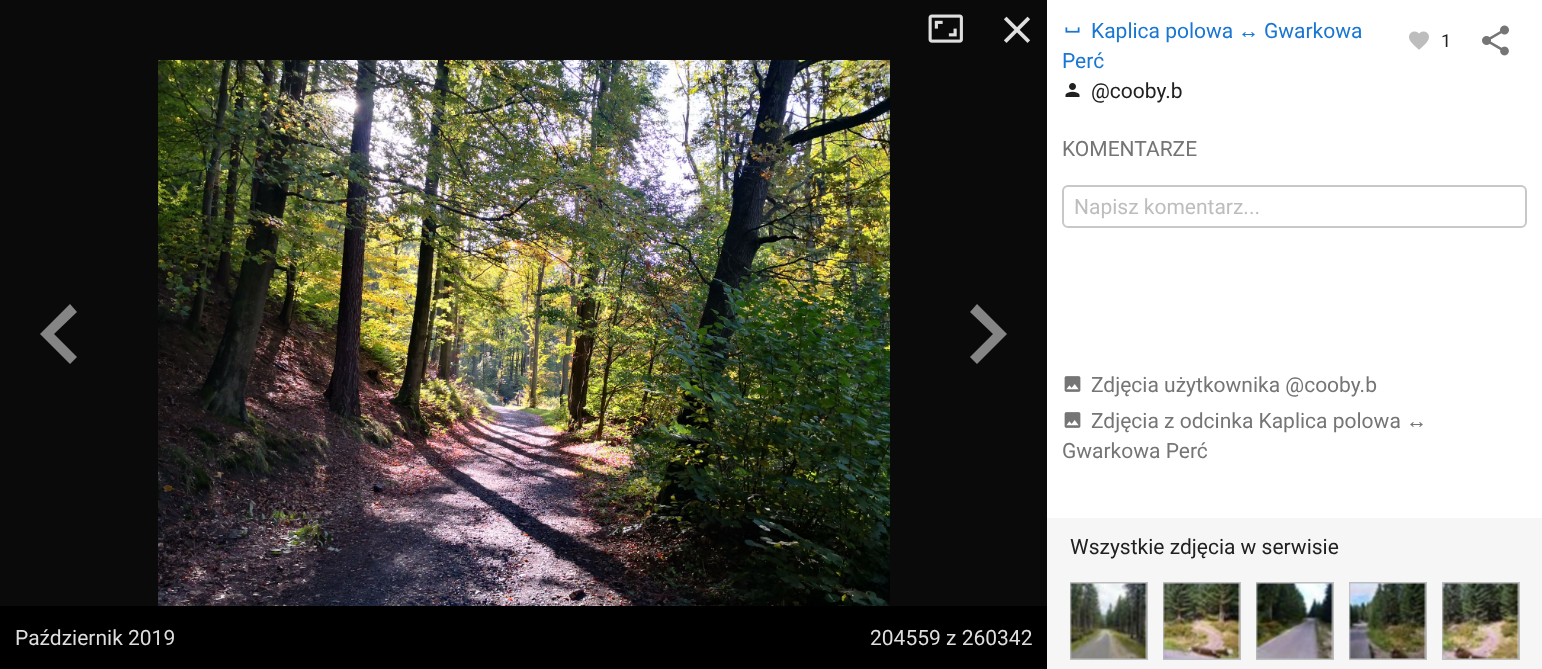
<!DOCTYPE html>
<meta charset="utf-8">
<style>body { margin: 0 } canvas { display: block }</style>
<canvas id="canvas" width="1542" height="669"></canvas>
<img id="img1" src="images/1.png" hidden>
<img id="img2" src="images/2.png" hidden>
<img id="img3" src="images/3.png" hidden>
<img id="img4" src="images/4.png" hidden>
<img id="img5" src="images/5.png" hidden>
<img id="img6" src="images/6.png" hidden>
<img id="img7" src="images/7.png" hidden>
<img id="img8" src="images/8.png" hidden>
<img id="img9" src="images/9.png" hidden>
<img id="img10" src="images/10.png" hidden>
<img id="img11" src="images/11.png" hidden>
<img id="img12" src="images/12.png" hidden>
<img id="img13" src="images/13.png" hidden>
<script>
window.onload = function () {
    const canvas = document.getElementById('canvas');
    const context = canvas.getContext('2d');
    context.miterLimit = 4;
    context.fontKerning = 'normal';

    context.fillStyle = 'rgb(10, 10, 10)';
    context.fillRect(0, 0, 1542, 669);
    context.fillStyle = 'rgb(255, 255, 255)';
    context.fillRect(1047, 0, 495, 518);
    context.drawImage(document.getElementById('img1'), 1065, 27, 15, 6);
    context.drawImage(document.getElementById('img2'), 1065, 83, 15, 14);
    context.drawImage(document.getElementById('img3'), 1409, 31, 20, 19);
    context.drawImage(document.getElementById('img4'), 1482, 25, 27, 31);
    context.beginPath();
    context.roundRect(1063, 186, 463, 41, 5);
    context.strokeStyle = 'rgb(200, 200, 200)';
    context.lineWidth = 2;
    context.stroke();
    context.drawImage(document.getElementById('img5'), 1064, 376, 17, 16);
    context.drawImage(document.getElementById('img5'), 1064, 412, 17, 16);
    context.fillStyle = 'rgb(246, 246, 246)';
    context.fillRect(1047, 518, 495, 151);
    context.strokeStyle = 'rgb(189, 189, 189)';
    context.strokeRect(1071, 583, 76, 76);
    context.drawImage(document.getElementById('img6'), 1070, 583, 77, 76);
    context.strokeRect(1164, 583, 76, 76);
    context.drawImage(document.getElementById('img7'), 1163, 583, 77, 76);
    context.strokeRect(1257, 583, 76, 76);
    context.drawImage(document.getElementById('img8'), 1256, 583, 77, 76);
    context.strokeRect(1350, 583, 76, 76);
    context.drawImage(document.getElementById('img9'), 1349, 583, 77, 76);
    context.strokeRect(1443, 583, 76, 76);
    context.drawImage(document.getElementById('img10'), 1442, 583, 77, 76);
    context.drawImage(document.getElementById('img11'), 928, 14, 35, 29);
    context.drawImage(document.getElementById('img12'), 1004, 16, 26, 27);
    context.fillStyle = 'rgb(133, 133, 133)';
    context.beginPath();
    context.moveTo(77, 312);
    context.lineTo(70, 304);
    context.lineTo(40, 334);
    context.lineTo(70, 364);
    context.lineTo(77, 357);
    context.lineTo(54, 334);
    context.closePath();
    context.fill();
    context.drawImage(document.getElementById('img13'), 158, 60, 732, 546);
    context.beginPath();
    context.moveTo(977, 304);
    context.lineTo(970, 312);
    context.lineTo(993, 334);
    context.lineTo(970, 357);
    context.lineTo(977, 364);
    context.lineTo(1007, 334);
    context.closePath();
    context.fill();
    context.fillStyle = 'rgb(0, 0, 0)';
    context.fillRect(0, 606, 1047, 63);
    context.font = '21px Roboto';
    context.fillStyle = 'rgb(25, 118, 210)';
    context.fillText('Kaplica polowa', 1091, 38);
    context.fillText('Gwarkowa', 1264, 38);
    context.font = '21px Liberation Sans';
    context.fillText('↔', 1238, 38);
    context.font = '21px Roboto';
    context.fillText('Perć', 1062, 68);
    context.fillStyle = 'rgb(33, 33, 33)';
    context.fillText('@cooby.b', 1091, 98);
    context.font = '18px Roboto';
    context.fillText('1', 1441, 47);
    context.font = '21px Roboto';
    context.fillStyle = 'rgb(117, 117, 117)';
    context.fillText('KOMENTARZE', 1062, 156);
    context.fillStyle = 'rgb(189, 189, 189)';
    context.fillText('Napisz komentarz...', 1074, 214);
    context.fillStyle = 'rgb(117, 117, 117)';
    context.fillText('Zdjęcia użytkownika @cooby.b', 1091, 392);
    context.fillText('Zdjęcia z odcinka Kaplica polowa', 1091, 428);
    context.font = '21px Liberation Sans';
    context.fillText('↔', 1406, 428);
    context.font = '21px Roboto';
    context.fillText('Gwarkowa Perć', 1062, 458);
    context.fillStyle = 'rgb(33, 33, 33)';
    context.fillText('Wszystkie zdjęcia w serwisie', 1070, 554);
    context.fillStyle = 'rgb(222, 222, 222)';
    context.fillText('Październik 2019', 15, 645);
    context.fillText('204559 z 260342', 870, 645);
};
</script>
